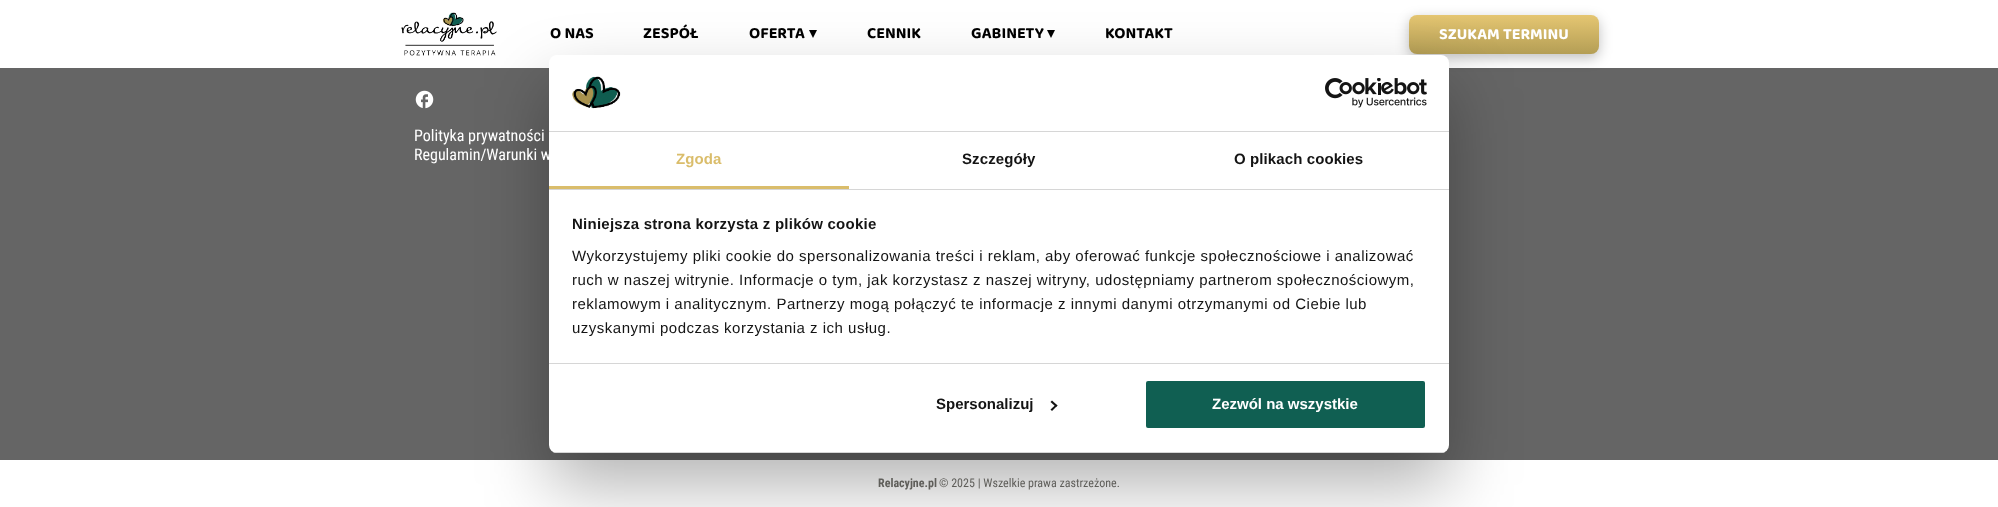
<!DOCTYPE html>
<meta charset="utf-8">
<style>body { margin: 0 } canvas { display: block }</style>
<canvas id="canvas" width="1998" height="507"></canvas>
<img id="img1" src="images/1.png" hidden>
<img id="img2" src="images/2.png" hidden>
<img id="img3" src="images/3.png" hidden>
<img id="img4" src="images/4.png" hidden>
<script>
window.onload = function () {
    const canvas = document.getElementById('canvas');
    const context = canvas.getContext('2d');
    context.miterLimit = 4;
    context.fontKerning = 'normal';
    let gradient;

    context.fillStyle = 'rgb(255, 255, 255)';
    context.fillRect(0, 0, 1998, 507);
    context.drawImage(document.getElementById('img1'), 401, 12, 96, 44);
    context.fillStyle = 'rgb(0, 0, 0)';
    context.beginPath();
    context.moveTo(809, 30);
    context.lineTo(817, 30);
    context.lineTo(813, 38);
    context.closePath();
    context.fill();
    context.beginPath();
    context.moveTo(1047, 30);
    context.lineTo(1055, 30);
    context.lineTo(1051, 38);
    context.closePath();
    context.fill();
    context.fillStyle = 'rgb(101, 101, 101)';
    context.fillRect(0, 68, 1998, 392);
    context.fillStyle = 'rgba(0, 0, 0, 0.25)';
    context.filter = 'blur(6.5px)';
    context.beginPath();
    context.roundRect(1409, 19, 190, 39, 8);
    context.fill();
    context.filter = 'none';
    gradient = context.createLinearGradient(1504, 15, 1504, 54);
    gradient.addColorStop(0, 'rgb(229, 198, 114)');
    gradient.addColorStop(1, 'rgb(180, 158, 85)');
    context.fillStyle = gradient;
    context.beginPath();
    context.roundRect(1409, 15, 190, 39, 8);
    context.fill();
    context.drawImage(document.getElementById('img2'), 415, 90, 19, 19);
    context.fillStyle = 'rgba(0, 0, 0, 0.3)';
    context.filter = 'blur(34px)';
    context.beginPath();
    context.roundRect(549, 87, 900, 398, 8);
    context.fill();
    context.filter = 'none';
    context.fillStyle = 'rgb(255, 255, 255)';
    context.beginPath();
    context.roundRect(549, 55, 900, 398, 8);
    context.fill();
    context.fillStyle = 'rgb(214, 214, 214)';
    context.fillRect(549, 131, 900, 1);
    context.drawImage(document.getElementById('img3'), 572, 76, 49, 33);
    context.drawImage(document.getElementById('img4'), 1325, 78, 102, 30);
    context.fillRect(549, 189, 900, 1);
    context.fillStyle = 'rgb(218, 189, 107)';
    context.fillRect(549, 186, 300, 3);
    context.fillStyle = 'rgb(214, 214, 214)';
    context.fillRect(549, 363, 900, 1);
    context.save();
    context.beginPath();
    context.roundRect(549, 55, 900, 398, 8);
    context.clip();
    context.fillRect(549, 452, 900, 1);
    context.restore();
    context.fillStyle = 'rgb(20, 20, 20)';
    context.beginPath();
    context.moveTo(1052, 400.5);
    context.lineTo(1057.5, 405.5);
    context.lineTo(1056, 407);
    context.lineTo(1050.5, 402);
    context.closePath();
    context.fill();
    context.beginPath();
    context.moveTo(1056, 404.5);
    context.lineTo(1057.5, 405.5);
    context.lineTo(1052, 411);
    context.lineTo(1050.5, 409.5);
    context.closePath();
    context.fill();
    context.fillStyle = 'rgb(16, 95, 82)';
    context.beginPath();
    context.roundRect(1145, 380, 281, 49, 3);
    context.fill();
    context.strokeStyle = 'rgb(255, 255, 255)';
    context.lineWidth = 2;
    context.stroke();
    context.font = 'bold 16px "Baloo 2"';
    context.fillStyle = 'rgb(0, 0, 0)';
    context.fillText('O NAS', 550, 38);
    context.fillText('ZESPÓŁ', 643, 38);
    context.fillText('OFERTA', 749, 38);
    context.fillText('CENNIK', 867, 38);
    context.fillText('GABINETY', 971, 38);
    context.fillText('KONTAKT', 1105, 38);
    context.fillStyle = 'rgb(255, 255, 255)';
    context.fillText('SZUKAM TERMINU', 1439, 39);
    context.font = '16px Roboto Condensed';
    context.fillText('Polityka prywatności', 414, 141);
    context.fillText('Regulamin/Warunki w', 414, 160);
    context.font = 'bold 12px Roboto Condensed';
    context.fillStyle = 'rgb(95, 94, 90)';
    context.fillText('Relacyjne.pl', 878, 487);
    context.font = '12px Roboto Condensed';
    context.fillText('© 2025 | Wszelkie prawa zastrzeżone.', 939, 487);
    context.letterSpacing = '0.1px';
    context.font = 'bold 15px Liberation Sans';
    context.fillStyle = 'rgb(218, 189, 107)';
    context.fillText('Zgoda', 676, 164);
    context.fillStyle = 'rgb(20, 20, 20)';
    context.fillText('Szczegóły', 962, 164);
    context.fillText('O plikach cookies', 1234, 164);
    context.letterSpacing = '0.25px';
    context.fillText('Niniejsza strona korzysta z plików cookie', 572, 229);
    context.letterSpacing = '0.5px';
    context.font = '15px Liberation Sans';
    context.fillText('Wykorzystujemy pliki cookie do spersonalizowania treści i reklam, aby oferować funkcje społecznościowe i analizować', 572, 261);
    context.fillText('ruch w naszej witrynie. Informacje o tym, jak korzystasz z naszej witryny, udostępniamy partnerom społecznościowym,', 572, 285);
    context.fillText('reklamowym i analitycznym. Partnerzy mogą połączyć te informacje z innymi danymi otrzymanymi od Ciebie lub', 572, 309);
    context.fillText('uzyskanymi podczas korzystania z ich usług.', 572, 333);
    context.letterSpacing = '0px';
    context.font = 'bold 15px Liberation Sans';
    context.fillText('Spersonalizuj', 936, 409);
    context.fillStyle = 'rgb(255, 255, 255)';
    context.fillText('Zezwól na wszystkie', 1212, 409);
};
</script>
